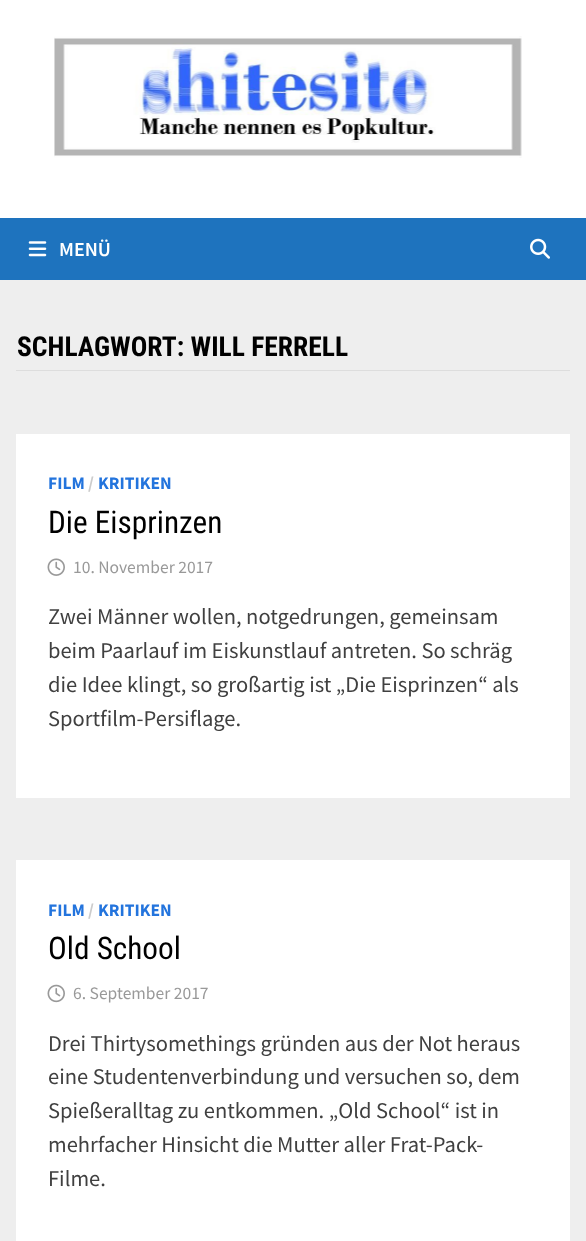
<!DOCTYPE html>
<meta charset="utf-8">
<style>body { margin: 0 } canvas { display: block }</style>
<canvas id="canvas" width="586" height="1241"></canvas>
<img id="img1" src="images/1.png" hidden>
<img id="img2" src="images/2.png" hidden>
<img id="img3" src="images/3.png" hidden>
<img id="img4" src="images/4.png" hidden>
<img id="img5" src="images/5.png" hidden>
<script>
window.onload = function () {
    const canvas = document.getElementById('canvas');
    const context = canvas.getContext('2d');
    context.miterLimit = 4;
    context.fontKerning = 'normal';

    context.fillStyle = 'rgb(255, 255, 255)';
    context.fillRect(0, 0, 586, 1241);
    context.drawImage(document.getElementById('img1'), 54, 36, 468, 122);
    context.fillStyle = 'rgb(30, 115, 190)';
    context.fillRect(0, 218, 586, 62);
    context.drawImage(document.getElementById('img2'), 28, 241, 19, 16);
    context.drawImage(document.getElementById('img3'), 530, 238, 20, 21);
    context.fillStyle = 'rgb(238, 238, 238)';
    context.fillRect(0, 280, 586, 961);
    context.fillStyle = 'rgb(221, 221, 221)';
    context.fillRect(16, 370, 554, 1);
    context.fillStyle = 'rgb(255, 255, 255)';
    context.fillRect(16, 434, 554, 364);
    context.drawImage(document.getElementById('img4'), 47, 558, 18, 18);
    context.fillRect(16, 860, 554, 381);
    context.drawImage(document.getElementById('img5'), 47, 984, 18, 19);
    context.font = '600 20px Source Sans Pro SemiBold';
    context.fillText('MENÜ', 59, 256);
    context.font = 'bold 27.5px Roboto Condensed';
    context.fillStyle = 'rgb(0, 0, 0)';
    context.fillText('SCHLAGWORT: WILL FERRELL', 17, 356);
    context.font = 'bold 17.5px Source Sans Pro';
    context.fillStyle = 'rgb(35, 116, 221)';
    context.fillText('FILM', 48, 489);
    context.fillStyle = 'rgb(204, 204, 204)';
    context.fillText('/', 88, 489);
    context.fillStyle = 'rgb(35, 116, 221)';
    context.fillText('KRITIKEN', 98, 489);
    context.font = '31.25px Roboto Condensed';
    context.fillStyle = 'rgb(0, 0, 0)';
    context.fillText('Die Eisprinzen', 48, 533);
    context.font = '17.5px Source Sans Pro';
    context.fillStyle = 'rgb(153, 153, 153)';
    context.fillText('10. November 2017', 73, 573);
    context.font = '22.5px Source Sans Pro';
    context.fillStyle = 'rgb(64, 64, 64)';
    context.fillText('Zwei Männer wollen, notgedrungen, gemeinsam', 48, 624);
    context.fillText('beim Paarlauf im Eiskunstlauf antreten. So schräg', 48, 658);
    context.fillText('die Idee klingt, so großartig ist „Die Eisprinzen“ als', 48, 692);
    context.fillText('Sportfilm-Persiflage.', 48, 726);
    context.font = 'bold 17.5px Source Sans Pro';
    context.fillStyle = 'rgb(35, 116, 221)';
    context.fillText('FILM', 48, 916);
    context.fillStyle = 'rgb(204, 204, 204)';
    context.fillText('/', 88, 916);
    context.fillStyle = 'rgb(35, 116, 221)';
    context.fillText('KRITIKEN', 98, 916);
    context.font = '31.25px Roboto Condensed';
    context.fillStyle = 'rgb(0, 0, 0)';
    context.fillText('Old School', 48, 959);
    context.font = '17.5px Source Sans Pro';
    context.fillStyle = 'rgb(153, 153, 153)';
    context.fillText('6. September 2017', 73, 999);
    context.font = '22.5px Source Sans Pro';
    context.fillStyle = 'rgb(64, 64, 64)';
    context.fillText('Drei Thirtysomethings gründen aus der Not heraus', 48, 1051);
    context.fillText('eine Studentenverbindung und versuchen so, dem', 48, 1084);
    context.fillText('Spießeralltag zu entkommen. „Old School“ ist in', 48, 1118);
    context.fillText('mehrfacher Hinsicht die Mutter aller Frat-Pack-', 48, 1152);
    context.fillText('Filme.', 48, 1186);
};
</script>
